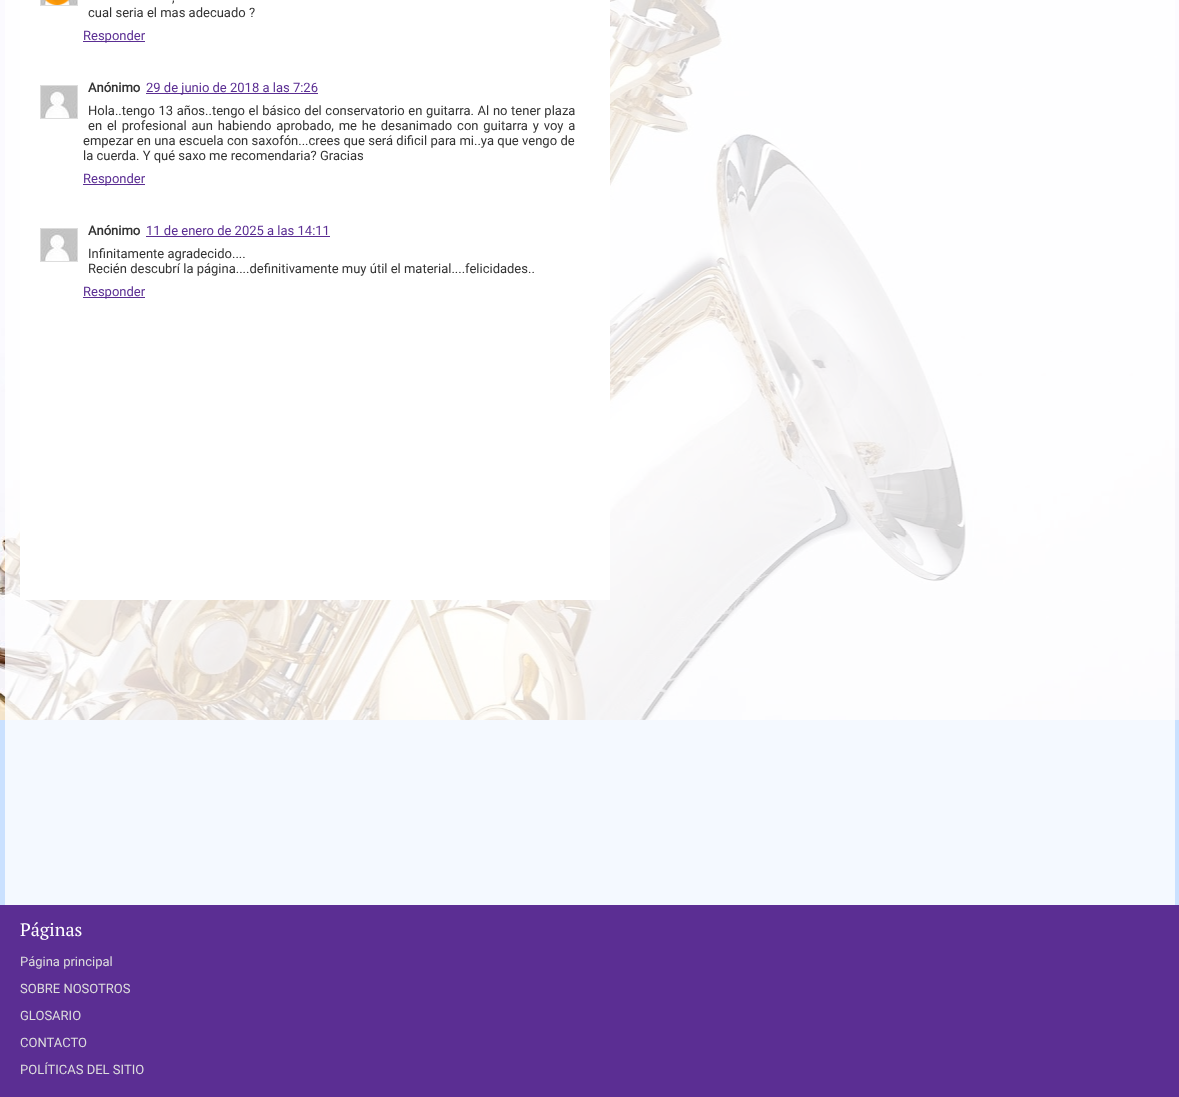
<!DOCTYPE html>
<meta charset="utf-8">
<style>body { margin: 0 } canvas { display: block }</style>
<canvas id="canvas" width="1179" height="1097"></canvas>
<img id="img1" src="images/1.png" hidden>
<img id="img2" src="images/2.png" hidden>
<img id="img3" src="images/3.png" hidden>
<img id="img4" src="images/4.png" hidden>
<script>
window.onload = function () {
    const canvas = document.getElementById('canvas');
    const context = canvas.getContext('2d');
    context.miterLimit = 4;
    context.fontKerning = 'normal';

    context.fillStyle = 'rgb(202, 225, 255)';
    context.fillRect(0, 0, 1179, 1097);
    context.fillStyle = 'rgb(244, 249, 255)';
    context.fillRect(5, 720, 1170, 185);
    context.drawImage(document.getElementById('img1'), 0, 0, 1179, 720);
    context.fillStyle = 'rgb(255, 255, 255)';
    context.fillRect(20, 0, 590, 600);
    context.drawImage(document.getElementById('img2'), 41, 0, 36, 5);
    context.strokeStyle = 'rgb(221, 221, 221)';
    context.strokeRect(40.5, -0.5, 37, 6);
    context.drawImage(document.getElementById('img3'), 44, 0, 26, 5);
    context.fillStyle = 'rgb(91, 46, 147)';
    context.fillRect(83, 41, 62, 1);
    context.drawImage(document.getElementById('img4'), 41, 86, 36, 32);
    context.strokeRect(40.5, 85.5, 37, 33);
    context.fillRect(146, 93, 172, 1);
    context.fillRect(83, 184, 62, 1);
    context.drawImage(document.getElementById('img4'), 41, 229, 36, 32);
    context.strokeRect(40.5, 228.5, 37, 33);
    context.fillRect(146, 236, 184, 1);
    context.fillRect(83, 297, 62, 1);
    context.fillRect(0, 905, 1179, 192);
    context.font = '13px Roboto';
    context.fillStyle = 'rgb(51, 51, 51)';
    context.fillText(',', 172, 2);
    context.fillText('cual seria el mas adecuado ?', 88, 17);
    context.fillStyle = 'rgb(91, 46, 147)';
    context.fillText('Responder', 83, 40);
    context.font = 'bold 13px Roboto';
    context.fillStyle = 'rgb(51, 51, 51)';
    context.fillText('Anónimo', 88, 92);
    context.font = '13px Roboto';
    context.fillStyle = 'rgb(91, 46, 147)';
    context.fillText('29 de junio de 2018 a las 7:26', 146, 92);
    context.wordSpacing = '0.4px';
    context.fillStyle = 'rgb(51, 51, 51)';
    context.fillText('Hola..tengo 13 años..tengo el básico del conservatorio en guitarra. Al no tener plaza', 88, 115);
    context.wordSpacing = '1.6px';
    context.fillText('en el profesional aun habiendo aprobado, me he desanimado con guitarra y voy a', 88, 130);
    context.wordSpacing = '0.1px';
    context.fillText('empezar en una escuela con saxofón...crees que será dificil para mi..ya que vengo de', 83, 145);
    context.wordSpacing = '0px';
    context.fillText('la cuerda. Y qué saxo me recomendaria? Gracias', 83, 160);
    context.fillStyle = 'rgb(91, 46, 147)';
    context.fillText('Responder', 83, 183);
    context.font = 'bold 13px Roboto';
    context.fillStyle = 'rgb(51, 51, 51)';
    context.fillText('Anónimo', 88, 235);
    context.font = '13px Roboto';
    context.fillStyle = 'rgb(91, 46, 147)';
    context.fillText('11 de enero de 2025 a las 14:11', 146, 235);
    context.fillStyle = 'rgb(51, 51, 51)';
    context.fillText('Infinitamente agradecido....', 88, 258);
    context.fillText('Recién descubrí la página....definitivamente muy útil el material....felicidades..', 88, 273);
    context.fillStyle = 'rgb(91, 46, 147)';
    context.fillText('Responder', 83, 296);
    context.font = '18px PT Serif';
    context.fillStyle = 'rgb(255, 255, 255)';
    context.fillText('Páginas', 20, 936);
    context.font = '13px Roboto';
    context.fillStyle = 'rgb(221, 221, 221)';
    context.fillText('Página principal', 20, 966);
    context.fillText('SOBRE NOSOTROS', 20, 993);
    context.fillText('GLOSARIO', 20, 1020);
    context.fillText('CONTACTO', 20, 1047);
    context.fillText('POLÍTICAS DEL SITIO', 20, 1074);
};
</script>
